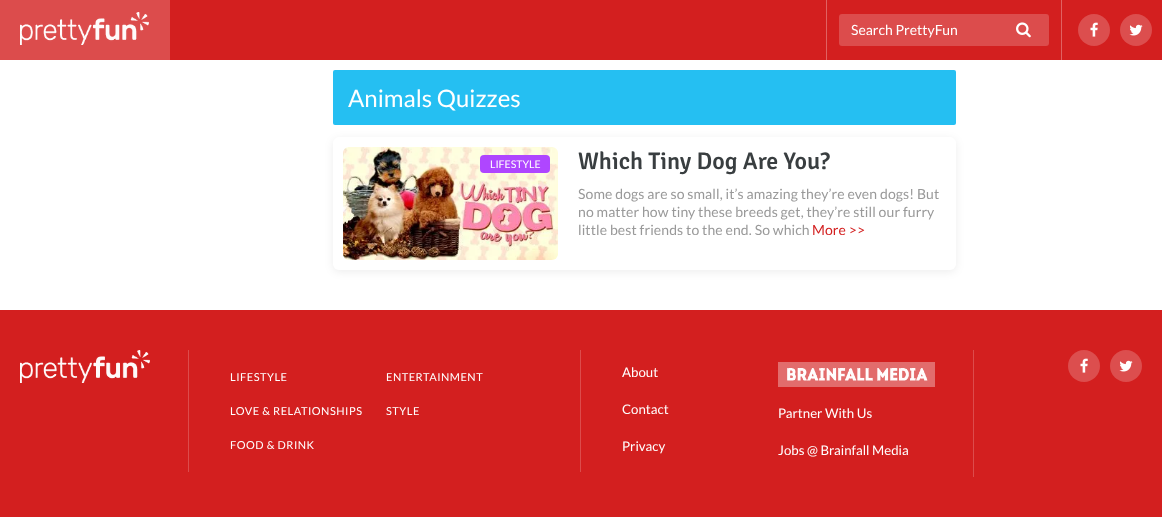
<!DOCTYPE html>
<meta charset="utf-8">
<style>body { margin: 0 } canvas { display: block }</style>
<canvas id="canvas" width="1162" height="529"></canvas>
<img id="img1" src="images/1.png" hidden>
<img id="img2" src="images/2.png" hidden>
<img id="img3" src="images/3.png" hidden>
<img id="img4" src="images/4.png" hidden>
<img id="img5" src="images/5.png" hidden>
<img id="img6" src="images/6.png" hidden>
<img id="img7" src="images/7.png" hidden>
<script>
window.onload = function () {
    const canvas = document.getElementById('canvas');
    const context = canvas.getContext('2d');
    context.miterLimit = 4;
    context.fontKerning = 'normal';

    context.fillStyle = 'rgb(255, 255, 255)';
    context.fillRect(0, 0, 1162, 529);
    context.fillStyle = 'rgb(211, 31, 31)';
    context.fillRect(170, 0, 992, 60);
    context.fillStyle = 'rgb(220, 76, 76)';
    context.fillRect(0, 0, 170, 60);
    context.drawImage(document.getElementById('img1'), 20, 12, 129, 33);
    context.fillStyle = 'rgb(224, 98, 98)';
    context.fillRect(1061, 0, 1, 60);
    context.fillRect(826, 0, 1, 60);
    context.fillStyle = 'rgb(220, 76, 76)';
    context.beginPath();
    context.roundRect(839, 14, 210, 32, 3);
    context.fill();
    context.drawImage(document.getElementById('img2'), 1016, 22, 15, 16);
    context.fillStyle = 'rgb(220, 78, 78)';
    context.beginPath();
    context.arc(1094, 30, 16, 0, 2 * Math.PI);
    context.fill();
    context.drawImage(document.getElementById('img3'), 1090, 22, 8, 15);
    context.beginPath();
    context.arc(1136, 30, 16, 0, 2 * Math.PI);
    context.fill();
    context.drawImage(document.getElementById('img4'), 1129, 24, 14, 12);
    context.fillStyle = 'rgb(37, 191, 242)';
    context.beginPath();
    context.roundRect(333, 70, 623, 55, 2);
    context.fill();
    context.fillStyle = 'rgba(0, 0, 0, 0.07)';
    context.filter = 'blur(4px)';
    context.beginPath();
    context.roundRect(333, 139, 623, 133, 6);
    context.fill();
    context.filter = 'none';
    context.fillStyle = 'rgb(255, 255, 255)';
    context.beginPath();
    context.roundRect(333, 137, 623, 133, 6);
    context.fill();
    context.drawImage(document.getElementById('img5'), 343, 147, 215, 113);
    context.fillStyle = 'rgb(175, 70, 255)';
    context.beginPath();
    context.roundRect(480, 155, 70, 18, 4);
    context.fill();
    context.fillStyle = 'rgb(211, 31, 31)';
    context.fillRect(0, 310, 1162, 207);
    context.drawImage(document.getElementById('img6'), 20, 350, 130, 33);
    context.fillStyle = 'rgb(220, 76, 76)';
    context.fillRect(580, 350, 1, 122);
    context.fillRect(188, 350, 1, 122);
    context.fillRect(973, 350, 1, 127);
    context.drawImage(document.getElementById('img7'), 778, 362, 157, 25);
    context.fillStyle = 'rgb(220, 78, 78)';
    context.beginPath();
    context.arc(1084, 366, 16, 0, 2 * Math.PI);
    context.fill();
    context.drawImage(document.getElementById('img3'), 1080, 358, 8, 15);
    context.beginPath();
    context.arc(1126, 366, 16, 0, 2 * Math.PI);
    context.fill();
    context.drawImage(document.getElementById('img4'), 1119, 360, 14, 12);
    context.font = '14px Lato';
    context.fillStyle = 'rgb(255, 255, 255)';
    context.fillText('Search PrettyFun', 851, 35);
    context.font = '24px Lato';
    context.fillText('Animals Quizzes', 348, 107);
    context.font = '10.5px Lato';
    context.fillText('LIFESTYLE', 490, 168);
    context.font = '500 24px Signika';
    context.fillStyle = 'rgb(57, 62, 64)';
    context.fillText('Which Tiny Dog Are You?', 578, 169);
    context.letterSpacing = '0.1px';
    context.font = '14px Lato';
    context.fillStyle = 'rgb(153, 153, 153)';
    context.fillText('Some dogs are so small, it’s amazing they’re even dogs! But', 578, 199);
    context.fillText('no matter how tiny these breeds get, they’re still our furry', 578, 217);
    context.fillText('little best friends to the end. So which', 578, 235);
    context.fillStyle = 'rgb(211, 31, 31)';
    context.fillText('More >>', 812, 235);
    context.letterSpacing = '0.5px';
    context.font = '11px Lato';
    context.fillStyle = 'rgb(255, 255, 255)';
    context.fillText('LIFESTYLE', 230, 381);
    context.fillText('LOVE & RELATIONSHIPS', 230, 415);
    context.fillText('FOOD & DRINK', 230, 449);
    context.fillText('ENTERTAINMENT', 386, 381);
    context.fillText('STYLE', 386, 415);
    context.letterSpacing = '0px';
    context.font = '13.25px Lato';
    context.fillText('About', 622, 377);
    context.fillText('Contact', 622, 414);
    context.fillText('Privacy', 622, 451);
    context.fillText('Partner With Us', 778, 418);
    context.fillText('Jobs @ Brainfall Media', 778, 455);
};
</script>
